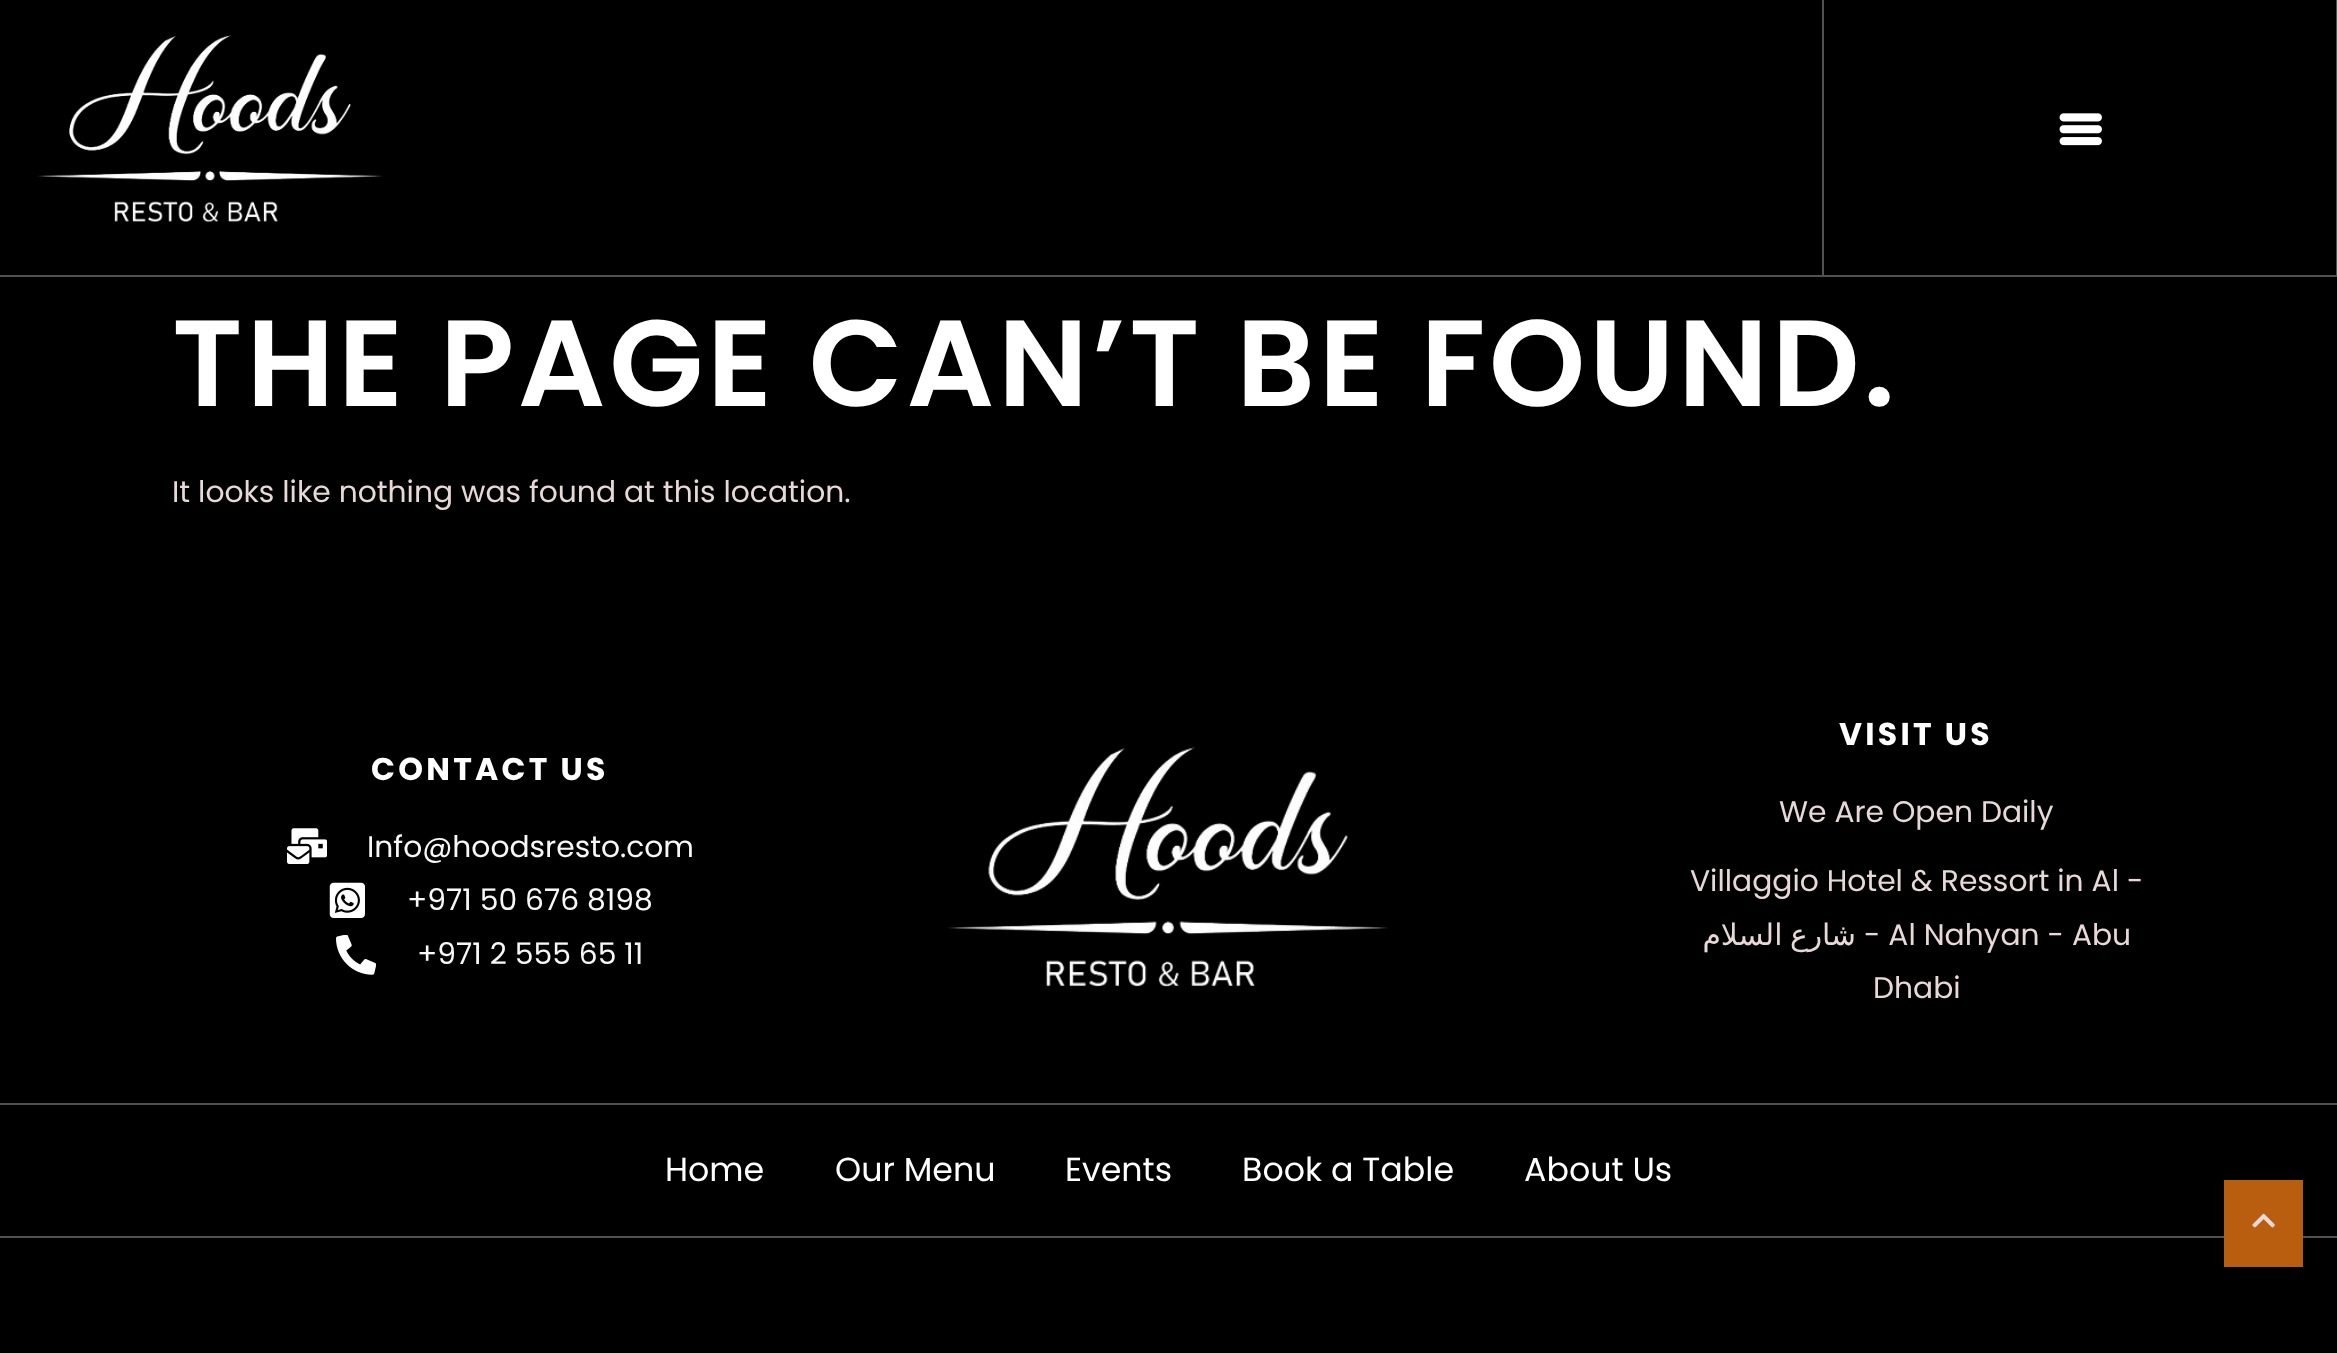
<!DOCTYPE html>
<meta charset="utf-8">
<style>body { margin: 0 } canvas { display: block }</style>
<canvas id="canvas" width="2337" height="1353"></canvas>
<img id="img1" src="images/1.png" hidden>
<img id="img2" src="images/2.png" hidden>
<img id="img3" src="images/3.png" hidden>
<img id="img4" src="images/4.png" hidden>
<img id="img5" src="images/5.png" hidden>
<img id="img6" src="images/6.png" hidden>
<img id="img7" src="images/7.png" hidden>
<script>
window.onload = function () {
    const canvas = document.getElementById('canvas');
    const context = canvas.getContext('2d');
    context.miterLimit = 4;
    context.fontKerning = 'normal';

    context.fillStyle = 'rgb(0, 0, 0)';
    context.fillRect(0, 0, 2337, 1353);
    context.fillStyle = 'rgb(82, 81, 79)';
    context.fillRect(1822, 0, 2, 277);
    context.fillRect(0, 275, 1824, 2);
    context.drawImage(document.getElementById('img1'), 37, 35, 346, 188);
    context.fillRect(2336, 0, 1, 277);
    context.fillRect(1824, 275, 513, 2);
    context.drawImage(document.getElementById('img2'), 2059, 113, 43, 33);
    context.drawImage(document.getElementById('img3'), 287, 828, 40, 36);
    context.drawImage(document.getElementById('img4'), 329, 882, 36, 36);
    context.drawImage(document.getElementById('img5'), 336, 935, 40, 40);
    context.drawImage(document.getElementById('img6'), 948, 747, 440, 240);
    context.fillRect(0, 1103, 2337, 2);
    context.fillRect(0, 1236, 2337, 2);
    context.fillStyle = 'rgb(184, 94, 14)';
    context.fillRect(2224, 1180, 79, 87);
    context.drawImage(document.getElementById('img7'), 2252, 1213, 23, 15);
    context.letterSpacing = '3.7px';
    context.font = '600 122.5px Poppins';
    context.fillStyle = 'rgb(255, 255, 255)';
    context.fillText('THE PAGE CAN’T BE FOUND.', 172, 406);
    context.letterSpacing = '0px';
    context.font = '29.75px Poppins';
    context.fillStyle = 'rgb(233, 216, 216)';
    context.fillText('It looks like nothing was found at this location.', 172, 502);
    context.letterSpacing = '3.25px';
    context.font = 'bold 31.5px Poppins';
    context.fillStyle = 'rgb(255, 255, 255)';
    context.fillText('CONTACT US', 371, 780);
    context.letterSpacing = '0px';
    context.font = '29.75px Poppins';
    context.fillStyle = 'rgb(247, 247, 247)';
    context.fillText('Info@hoodsresto.com', 367, 857);
    context.fillText('+971 50 676 8198', 407, 910);
    context.fillText('+971 2 555 65 11', 417, 964);
    context.letterSpacing = '3.25px';
    context.font = 'bold 31.5px Poppins';
    context.fillStyle = 'rgb(255, 255, 255)';
    context.fillText('VISIT US', 1839, 745);
    context.letterSpacing = '0px';
    context.font = '29.75px Poppins';
    context.fillStyle = 'rgb(233, 216, 216)';
    context.fillText('We Are Open Daily', 1779, 822);
    context.fillText('Villaggio Hotel & Ressort in Al -', 1690, 891);
    context.wordSpacing = '-2px';
    context.direction = 'rtl';
    context.font = '29.75px DejaVu Sans';
    context.fillText('شارع السلام', 1856, 945);
    context.wordSpacing = '0px';
    context.direction = 'ltr';
    context.font = '29.75px Poppins';
    context.fillText('- Al Nahyan - Abu', 1864, 945);
    context.fillText('Dhabi', 1873, 998);
    context.font = '33.25px Poppins';
    context.fillStyle = 'rgb(255, 255, 255)';
    context.fillText('Home', 665, 1181);
    context.fillText('Our Menu', 835, 1181);
    context.fillText('Events', 1065, 1181);
    context.fillText('Book a Table', 1242, 1181);
    context.fillText('About Us', 1524, 1181);
};
</script>
